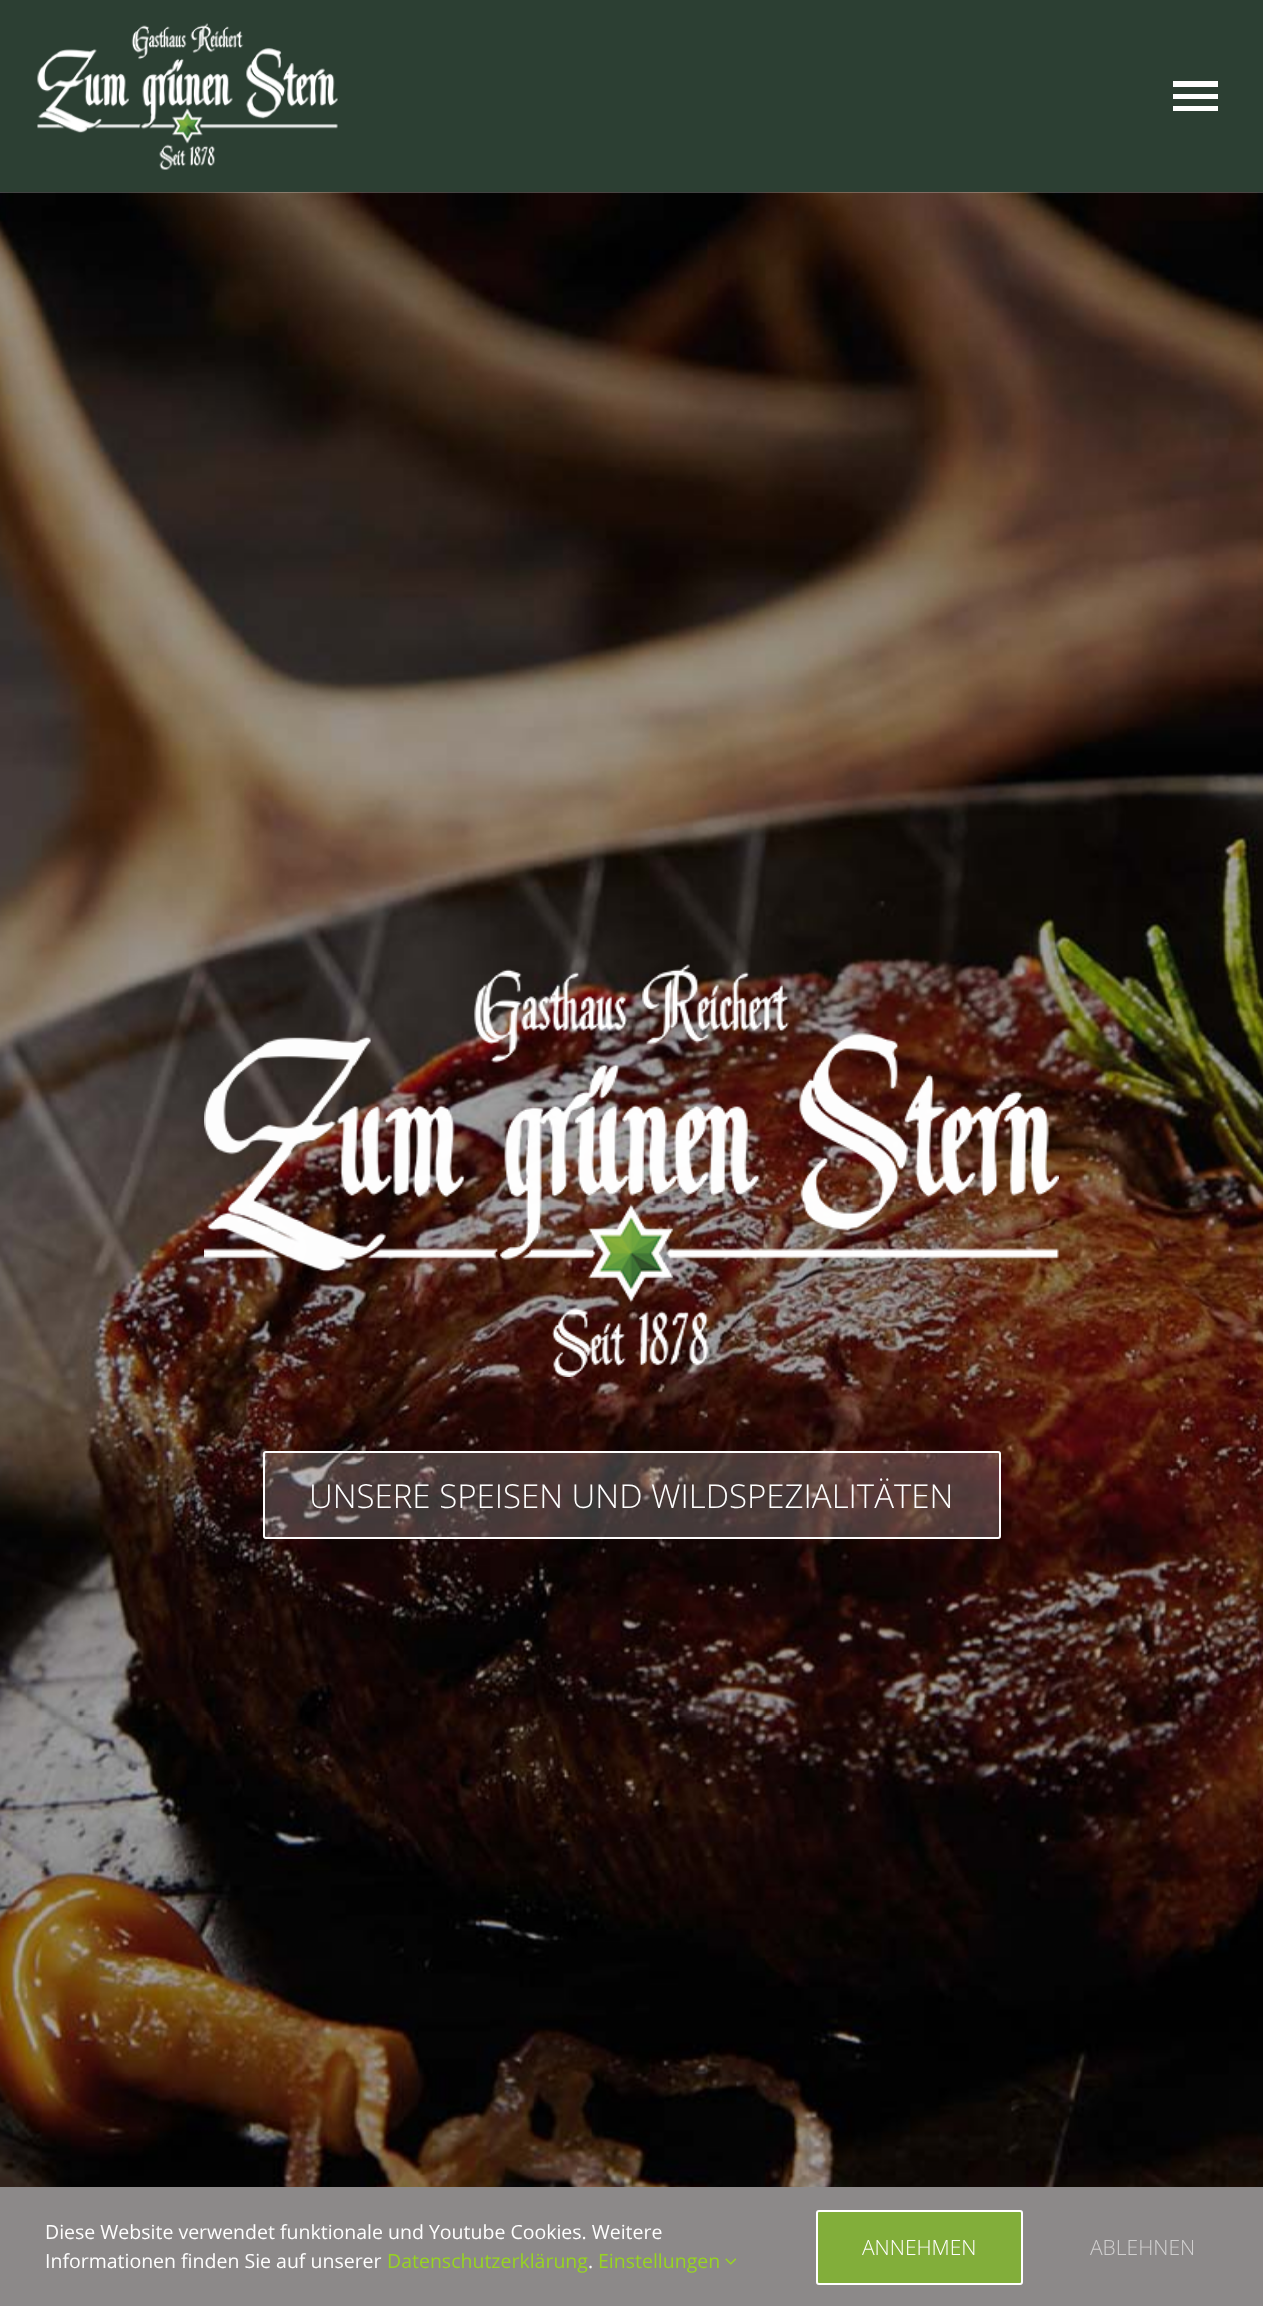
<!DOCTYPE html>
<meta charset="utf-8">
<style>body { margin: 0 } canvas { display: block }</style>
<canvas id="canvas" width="1263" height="2306"></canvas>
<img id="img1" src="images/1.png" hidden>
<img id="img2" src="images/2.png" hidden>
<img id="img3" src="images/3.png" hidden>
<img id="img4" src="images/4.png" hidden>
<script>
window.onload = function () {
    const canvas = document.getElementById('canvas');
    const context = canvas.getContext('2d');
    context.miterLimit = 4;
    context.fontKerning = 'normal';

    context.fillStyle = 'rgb(255, 255, 255)';
    context.fillRect(0, 0, 1263, 2306);
    context.fillStyle = 'rgb(44, 63, 51)';
    context.fillRect(0, 0, 1263, 192);
    context.drawImage(document.getElementById('img1'), 37, 23, 301, 147);
    context.fillStyle = 'rgb(255, 255, 255)';
    context.beginPath();
    context.moveTo(1173, 81);
    context.lineTo(1218, 81);
    context.lineTo(1218, 87);
    context.lineTo(1173, 87);
    context.closePath();
    context.moveTo(1173, 99);
    context.lineTo(1173, 94);
    context.lineTo(1218, 94);
    context.lineTo(1218, 99);
    context.closePath();
    context.moveTo(1173, 111);
    context.lineTo(1173, 106);
    context.lineTo(1218, 106);
    context.lineTo(1218, 111);
    context.closePath();
    context.fill();
    context.drawImage(document.getElementById('img2'), 0, 192, 1263, 1995);
    context.drawImage(document.getElementById('img3'), 204, 964, 855, 414);
    context.fillStyle = 'rgba(255, 255, 255, 0.21)';
    context.beginPath();
    context.roundRect(263, 1451, 738, 88, 3);
    context.fill();
    context.beginPath();
    context.roundRect(264, 1452, 736, 86, 2);
    context.strokeStyle = 'rgba(255, 255, 255, 0.99)';
    context.lineWidth = 2;
    context.stroke();
    context.fillStyle = 'rgb(140, 137, 137)';
    context.fillRect(0, 2187, 1263, 119);
    context.drawImage(document.getElementById('img4'), 725, 2258, 12, 7);
    context.fillStyle = 'rgb(130, 174, 58)';
    context.beginPath();
    context.roundRect(817, 2211, 205, 73, 2);
    context.fill();
    context.strokeStyle = 'rgb(255, 255, 255)';
    context.stroke();
    context.font = '300 33px Open Sans';
    context.fillStyle = 'rgb(254, 254, 254)';
    context.fillText('UNSERE SPEISEN UND WILDSPEZIALITÄTEN', 309, 1508);
    context.font = '19.5px Open Sans';
    context.fillText('Diese Website verwendet funktionale und Youtube Cookies. Weitere', 45, 2239);
    context.fillText('Informationen finden Sie auf unserer', 45, 2268);
    context.fillStyle = 'rgb(151, 212, 33)';
    context.fillText('Datenschutzerklärung', 387, 2268);
    context.fillText('Einstellungen', 598, 2268);
    context.fillStyle = 'rgb(254, 254, 254)';
    context.fillText('.', 588, 2268);
    context.font = '300 21px Open Sans';
    context.fillText('ANNEHMEN', 862, 2255);
    context.fillStyle = 'rgb(209, 208, 208)';
    context.fillText('ABLEHNEN', 1090, 2255);
};
</script>
